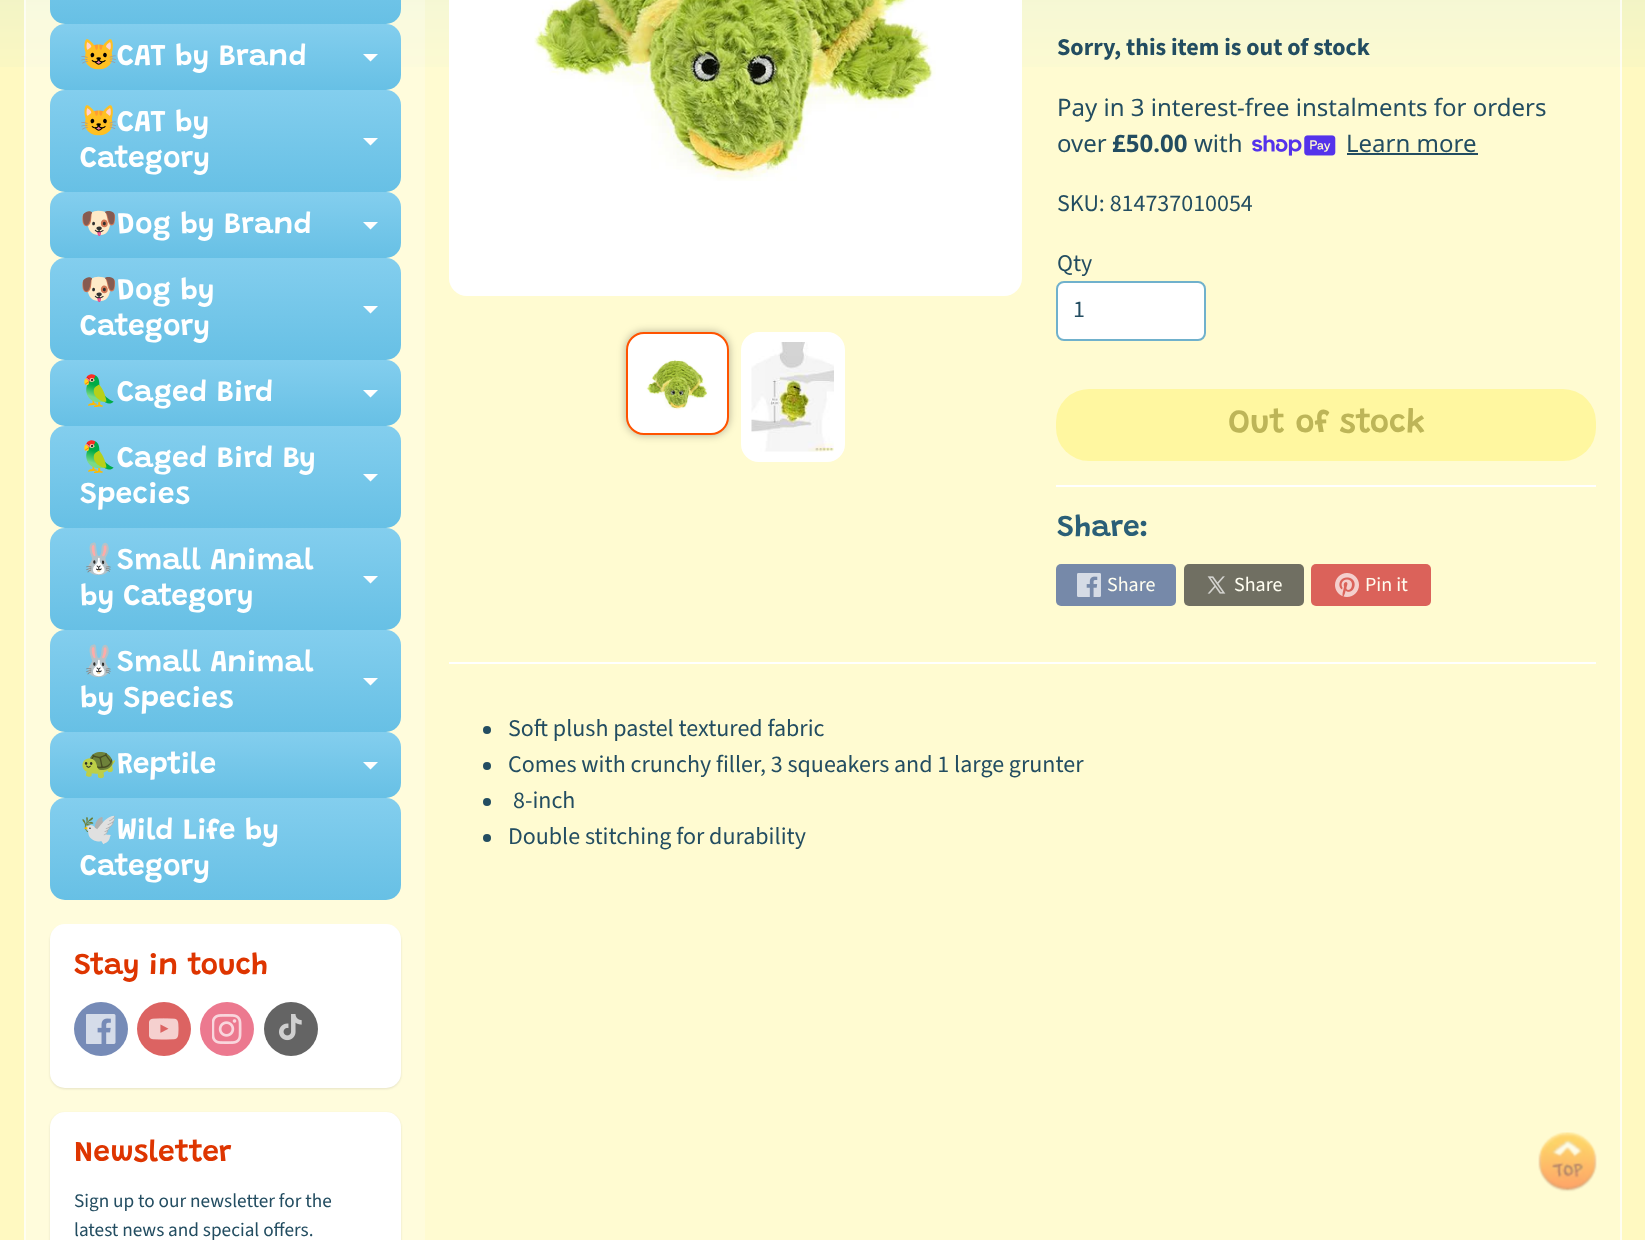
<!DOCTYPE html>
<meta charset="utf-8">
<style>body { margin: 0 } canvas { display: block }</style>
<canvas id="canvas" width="1645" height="1240"></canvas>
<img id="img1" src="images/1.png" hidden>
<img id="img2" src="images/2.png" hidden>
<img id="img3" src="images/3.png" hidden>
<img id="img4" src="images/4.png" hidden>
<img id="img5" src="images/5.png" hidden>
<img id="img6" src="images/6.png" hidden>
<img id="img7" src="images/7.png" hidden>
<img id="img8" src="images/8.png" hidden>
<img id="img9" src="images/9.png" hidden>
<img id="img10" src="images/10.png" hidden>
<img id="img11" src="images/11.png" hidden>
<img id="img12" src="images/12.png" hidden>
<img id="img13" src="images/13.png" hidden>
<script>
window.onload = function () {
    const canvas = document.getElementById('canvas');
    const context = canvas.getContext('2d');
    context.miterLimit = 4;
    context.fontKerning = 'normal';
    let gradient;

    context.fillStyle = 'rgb(255, 249, 193)';
    context.fillRect(0, 0, 1645, 1240);
    context.fillStyle = 'rgb(255, 251, 209)';
    context.fillRect(24, 0, 1598, 1240);
    context.drawImage(document.getElementById('img1'), 0, 0, 1645, 67);
    context.strokeStyle = 'rgba(255, 255, 255, 0.7)';
    context.lineWidth = 2;
    context.strokeRect(25, -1, 1596, 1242);
    context.fillStyle = 'rgba(255, 255, 255, 0.25)';
    context.fillRect(26, 0, 399, 1240);
    gradient = context.createLinearGradient(225, -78, 225, 24);
    gradient.addColorStop(0, 'rgb(131, 206, 238)');
    gradient.addColorStop(1, 'rgb(103, 192, 229)');
    context.fillStyle = gradient;
    context.beginPath();
    context.roundRect(50, -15, 351, 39, 15);
    context.fill();
    gradient = context.createLinearGradient(225, 24, 225, 90);
    gradient.addColorStop(0, 'rgb(131, 206, 238)');
    gradient.addColorStop(1, 'rgb(103, 192, 229)');
    context.fillStyle = gradient;
    context.beginPath();
    context.roundRect(50, 24, 351, 66, 15);
    context.fill();
    context.fillStyle = 'rgb(255, 255, 255)';
    context.beginPath();
    context.moveTo(363, 54);
    context.lineTo(378, 54);
    context.lineTo(370.5, 61.5);
    context.closePath();
    context.fill();
    gradient = context.createLinearGradient(225, 90, 225, 192);
    gradient.addColorStop(0, 'rgb(131, 206, 238)');
    gradient.addColorStop(1, 'rgb(103, 192, 229)');
    context.fillStyle = gradient;
    context.beginPath();
    context.roundRect(50, 90, 351, 102, 15);
    context.fill();
    context.fillStyle = 'rgb(255, 255, 255)';
    context.beginPath();
    context.moveTo(363, 138);
    context.lineTo(378, 138);
    context.lineTo(370.5, 145.5);
    context.closePath();
    context.fill();
    gradient = context.createLinearGradient(225, 192, 225, 258);
    gradient.addColorStop(0, 'rgb(131, 206, 238)');
    gradient.addColorStop(1, 'rgb(103, 192, 229)');
    context.fillStyle = gradient;
    context.beginPath();
    context.roundRect(50, 192, 351, 66, 15);
    context.fill();
    context.fillStyle = 'rgb(255, 255, 255)';
    context.beginPath();
    context.moveTo(363, 222);
    context.lineTo(378, 222);
    context.lineTo(370.5, 229.5);
    context.closePath();
    context.fill();
    gradient = context.createLinearGradient(225, 258, 225, 360);
    gradient.addColorStop(0, 'rgb(131, 206, 238)');
    gradient.addColorStop(1, 'rgb(103, 192, 229)');
    context.fillStyle = gradient;
    context.beginPath();
    context.roundRect(50, 258, 351, 102, 15);
    context.fill();
    context.fillStyle = 'rgb(255, 255, 255)';
    context.beginPath();
    context.moveTo(363, 306);
    context.lineTo(378, 306);
    context.lineTo(370.5, 313.5);
    context.closePath();
    context.fill();
    gradient = context.createLinearGradient(225, 360, 225, 426);
    gradient.addColorStop(0, 'rgb(131, 206, 238)');
    gradient.addColorStop(1, 'rgb(103, 192, 229)');
    context.fillStyle = gradient;
    context.beginPath();
    context.roundRect(50, 360, 351, 66, 15);
    context.fill();
    context.fillStyle = 'rgb(255, 255, 255)';
    context.beginPath();
    context.moveTo(363, 390);
    context.lineTo(378, 390);
    context.lineTo(370.5, 397.5);
    context.closePath();
    context.fill();
    gradient = context.createLinearGradient(225, 426, 225, 528);
    gradient.addColorStop(0, 'rgb(131, 206, 238)');
    gradient.addColorStop(1, 'rgb(103, 192, 229)');
    context.fillStyle = gradient;
    context.beginPath();
    context.roundRect(50, 426, 351, 102, 15);
    context.fill();
    context.fillStyle = 'rgb(255, 255, 255)';
    context.beginPath();
    context.moveTo(363, 474);
    context.lineTo(378, 474);
    context.lineTo(370.5, 481.5);
    context.closePath();
    context.fill();
    gradient = context.createLinearGradient(225, 528, 225, 630);
    gradient.addColorStop(0, 'rgb(131, 206, 238)');
    gradient.addColorStop(1, 'rgb(103, 192, 229)');
    context.fillStyle = gradient;
    context.beginPath();
    context.roundRect(50, 528, 351, 102, 15);
    context.fill();
    context.fillStyle = 'rgb(255, 255, 255)';
    context.beginPath();
    context.moveTo(363, 576);
    context.lineTo(378, 576);
    context.lineTo(370.5, 583.5);
    context.closePath();
    context.fill();
    gradient = context.createLinearGradient(225, 630, 225, 732);
    gradient.addColorStop(0, 'rgb(131, 206, 238)');
    gradient.addColorStop(1, 'rgb(103, 192, 229)');
    context.fillStyle = gradient;
    context.beginPath();
    context.roundRect(50, 630, 351, 102, 15);
    context.fill();
    context.fillStyle = 'rgb(255, 255, 255)';
    context.beginPath();
    context.moveTo(363, 678);
    context.lineTo(378, 678);
    context.lineTo(370.5, 685.5);
    context.closePath();
    context.fill();
    gradient = context.createLinearGradient(225, 732, 225, 798);
    gradient.addColorStop(0, 'rgb(131, 206, 238)');
    gradient.addColorStop(1, 'rgb(103, 192, 229)');
    context.fillStyle = gradient;
    context.beginPath();
    context.roundRect(50, 732, 351, 66, 15);
    context.fill();
    context.fillStyle = 'rgb(255, 255, 255)';
    context.beginPath();
    context.moveTo(363, 762);
    context.lineTo(378, 762);
    context.lineTo(370.5, 769.5);
    context.closePath();
    context.fill();
    gradient = context.createLinearGradient(225, 798, 225, 900);
    gradient.addColorStop(0, 'rgb(131, 206, 238)');
    gradient.addColorStop(1, 'rgb(103, 192, 229)');
    context.fillStyle = gradient;
    context.beginPath();
    context.roundRect(50, 798, 351, 102, 15);
    context.fill();
    context.fillStyle = 'rgba(0, 0, 0, 0.1)';
    context.filter = 'blur(1px)';
    context.beginPath();
    context.roundRect(50, 926, 351, 163, 15);
    context.fill();
    context.filter = 'none';
    context.fillStyle = 'rgb(255, 255, 255)';
    context.beginPath();
    context.roundRect(50, 924, 351, 164, 15);
    context.fill();
    context.fillStyle = 'rgb(118, 139, 183)';
    context.beginPath();
    context.arc(101, 1029, 27, 0, 2 * Math.PI);
    context.fill();
    context.drawImage(document.getElementById('img2'), 86, 1014, 30, 30);
    context.fillStyle = 'rgb(220, 99, 98)';
    context.beginPath();
    context.arc(164, 1029, 27, 0, 2 * Math.PI);
    context.fill();
    context.drawImage(document.getElementById('img3'), 149, 1018, 30, 22);
    context.fillStyle = 'rgb(236, 121, 143)';
    context.beginPath();
    context.arc(227, 1029, 27, 0, 2 * Math.PI);
    context.fill();
    context.drawImage(document.getElementById('img4'), 212, 1014, 30, 30);
    context.fillStyle = 'rgb(100, 100, 100)';
    context.beginPath();
    context.arc(291, 1029, 27, 0, 2 * Math.PI);
    context.fill();
    context.drawImage(document.getElementById('img5'), 279, 1014, 23, 27);
    context.fillStyle = 'rgba(0, 0, 0, 0.1)';
    context.filter = 'blur(1px)';
    context.beginPath();
    context.roundRect(50, 1113, 351, 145, 15);
    context.fill();
    context.filter = 'none';
    context.fillStyle = 'rgb(255, 255, 255)';
    context.beginPath();
    context.roundRect(50, 1112, 351, 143, 15);
    context.fill();
    context.beginPath();
    context.roundRect(449, -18, 573, 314, 18);
    context.fill();
    context.drawImage(document.getElementById('img6'), 534, 0, 402, 181);
    context.fillStyle = 'rgba(0, 0, 0, 0.3)';
    context.filter = 'blur(4.5px)';
    context.beginPath();
    context.roundRect(626, 332, 103, 103, 18);
    context.fill();
    context.filter = 'none';
    context.fillStyle = 'rgb(255, 255, 255)';
    context.beginPath();
    context.roundRect(627, 333, 101, 101, 17);
    context.fill();
    context.strokeStyle = 'rgb(255, 83, 0)';
    context.stroke();
    context.drawImage(document.getElementById('img7'), 646, 359, 62, 51);
    context.beginPath();
    context.roundRect(742, 333, 102, 128, 17);
    context.fill();
    context.strokeStyle = 'rgb(255, 255, 255)';
    context.stroke();
    context.drawImage(document.getElementById('img8'), 751, 342, 83, 110);
    context.drawImage(document.getElementById('img9'), 1252, 135, 84, 21);
    context.fillStyle = 'rgb(35, 77, 97)';
    context.fillRect(1347, 153, 131, 2);
    context.fillStyle = 'rgb(255, 255, 255)';
    context.beginPath();
    context.roundRect(1057, 282, 148, 58, 7);
    context.fill();
    context.strokeStyle = 'rgb(112, 177, 204)';
    context.stroke();
    context.fillStyle = 'rgb(255, 247, 160)';
    context.beginPath();
    context.roundRect(1056, 389, 540, 72, 33);
    context.fill();
    context.fillStyle = 'rgb(255, 255, 255)';
    context.fillRect(1056, 485, 540, 2);
    context.fillStyle = 'rgb(118, 137, 169)';
    context.beginPath();
    context.roundRect(1056, 564, 120, 42, 5);
    context.fill();
    context.drawImage(document.getElementById('img10'), 1077, 573, 24, 24);
    context.fillStyle = 'rgb(112, 111, 98)';
    context.beginPath();
    context.roundRect(1184, 564, 120, 42, 5);
    context.fill();
    context.drawImage(document.getElementById('img11'), 1207, 576, 19, 18);
    context.fillStyle = 'rgb(219, 98, 90)';
    context.beginPath();
    context.roundRect(1311, 564, 120, 42, 5);
    context.fill();
    context.drawImage(document.getElementById('img12'), 1335, 573, 24, 24);
    context.fillStyle = 'rgb(255, 255, 255)';
    context.fillRect(449, 662, 1147, 2);
    context.fillStyle = 'rgb(35, 77, 97)';
    context.beginPath();
    context.arc(487, 730, 4, 0, 2 * Math.PI);
    context.fill();
    context.beginPath();
    context.arc(487, 766, 4, 0, 2 * Math.PI);
    context.fill();
    context.beginPath();
    context.arc(487, 802, 4, 0, 2 * Math.PI);
    context.fill();
    context.beginPath();
    context.arc(487, 838, 4, 0, 2 * Math.PI);
    context.fill();
    context.drawImage(document.getElementById('img13'), 1538, 1132, 59, 60);
    context.font = '30px Noto Color Emoji';
    context.fillStyle = 'rgb(255, 255, 255)';
    context.fillText('😺', 80, 65);
    context.font = '600 30px Grandstander';
    context.fillText('CAT by Brand', 117, 65);
    context.font = '30px Noto Color Emoji';
    context.fillText('😺', 80, 131);
    context.font = '600 30px Grandstander';
    context.fillText('CAT by', 117, 131);
    context.fillText('Category', 80, 167);
    context.font = '30px Noto Color Emoji';
    context.fillText('🐶', 80, 233);
    context.font = '600 30px Grandstander';
    context.fillText('Dog by Brand', 117, 233);
    context.font = '30px Noto Color Emoji';
    context.fillText('🐶', 80, 299);
    context.font = '600 30px Grandstander';
    context.fillText('Dog by', 117, 299);
    context.fillText('Category', 80, 335);
    context.font = '30px Noto Color Emoji';
    context.fillText('🦜', 80, 401);
    context.font = '600 30px Grandstander';
    context.fillText('Caged Bird', 117, 401);
    context.font = '30px Noto Color Emoji';
    context.fillText('🦜', 80, 467);
    context.font = '600 30px Grandstander';
    context.fillText('Caged Bird By', 117, 467);
    context.fillText('Species', 80, 503);
    context.font = '30px Noto Color Emoji';
    context.fillText('🐰', 80, 569);
    context.font = '600 30px Grandstander';
    context.fillText('Small Animal', 117, 569);
    context.fillText('by Category', 80, 605);
    context.font = '30px Noto Color Emoji';
    context.fillText('🐰', 80, 671);
    context.font = '600 30px Grandstander';
    context.fillText('Small Animal', 117, 671);
    context.fillText('by Species', 80, 707);
    context.font = '30px Noto Color Emoji';
    context.fillText('🐢', 80, 773);
    context.font = '600 30px Grandstander';
    context.fillText('Reptile', 117, 773);
    context.font = '30px Noto Color Emoji';
    context.fillText('🕊️', 80, 839);
    context.font = '600 30px Grandstander';
    context.fillText('Wild Life by', 117, 839);
    context.fillText('Category', 80, 875);
    context.fillStyle = 'rgb(222, 53, 0)';
    context.fillText('Stay in touch', 74, 974);
    context.fillText('Newsletter', 74, 1161);
    context.font = '19.25px Source Sans Pro';
    context.fillStyle = 'rgb(35, 77, 97)';
    context.fillText('Sign up to our newsletter for the', 74, 1207);
    context.fillText('latest news and special offers.', 74, 1236);
    context.font = 'bold 24px Source Sans Pro';
    context.fillText('Sorry, this item is out of stock', 1057, 55);
    context.font = '24px Noto Sans';
    context.fillText('Pay in 3 interest-free instalments for orders', 1057, 116);
    context.fillText('over', 1057, 152);
    context.font = 'bold 24px Noto Sans';
    context.fillText('£50.00', 1112, 152);
    context.font = '24px Noto Sans';
    context.fillText('with', 1194, 152);
    context.fillText('Learn more', 1346, 152);
    context.font = '24px Source Sans Pro';
    context.fillText('SKU: 814737010054', 1057, 211);
    context.fillText('Qty', 1057, 271);
    context.fillText('1', 1073, 317);
    context.font = '600 33px Grandstander';
    context.fillStyle = 'rgb(189, 181, 88)';
    context.fillText('Out of stock', 1228, 432);
    context.font = '600 30px Grandstander';
    context.fillStyle = 'rgb(43, 95, 119)';
    context.fillText('Share:', 1057, 536);
    context.font = '20px Source Sans Pro';
    context.fillStyle = 'rgb(255, 254, 241)';
    context.fillText('Share', 1107, 591);
    context.fillText('Share', 1234, 591);
    context.fillText('Pin it', 1365, 591);
    context.font = '24px Source Sans Pro';
    context.fillStyle = 'rgb(35, 77, 97)';
    context.fillText('Soft plush pastel textured fabric', 508, 736);
    context.fillText('Comes with crunchy filler, 3 squeakers and 1 large grunter', 508, 772);
    context.fillText('8-inch', 513, 808);
    context.fillText('Double stitching for durability', 508, 844);
};
</script>
